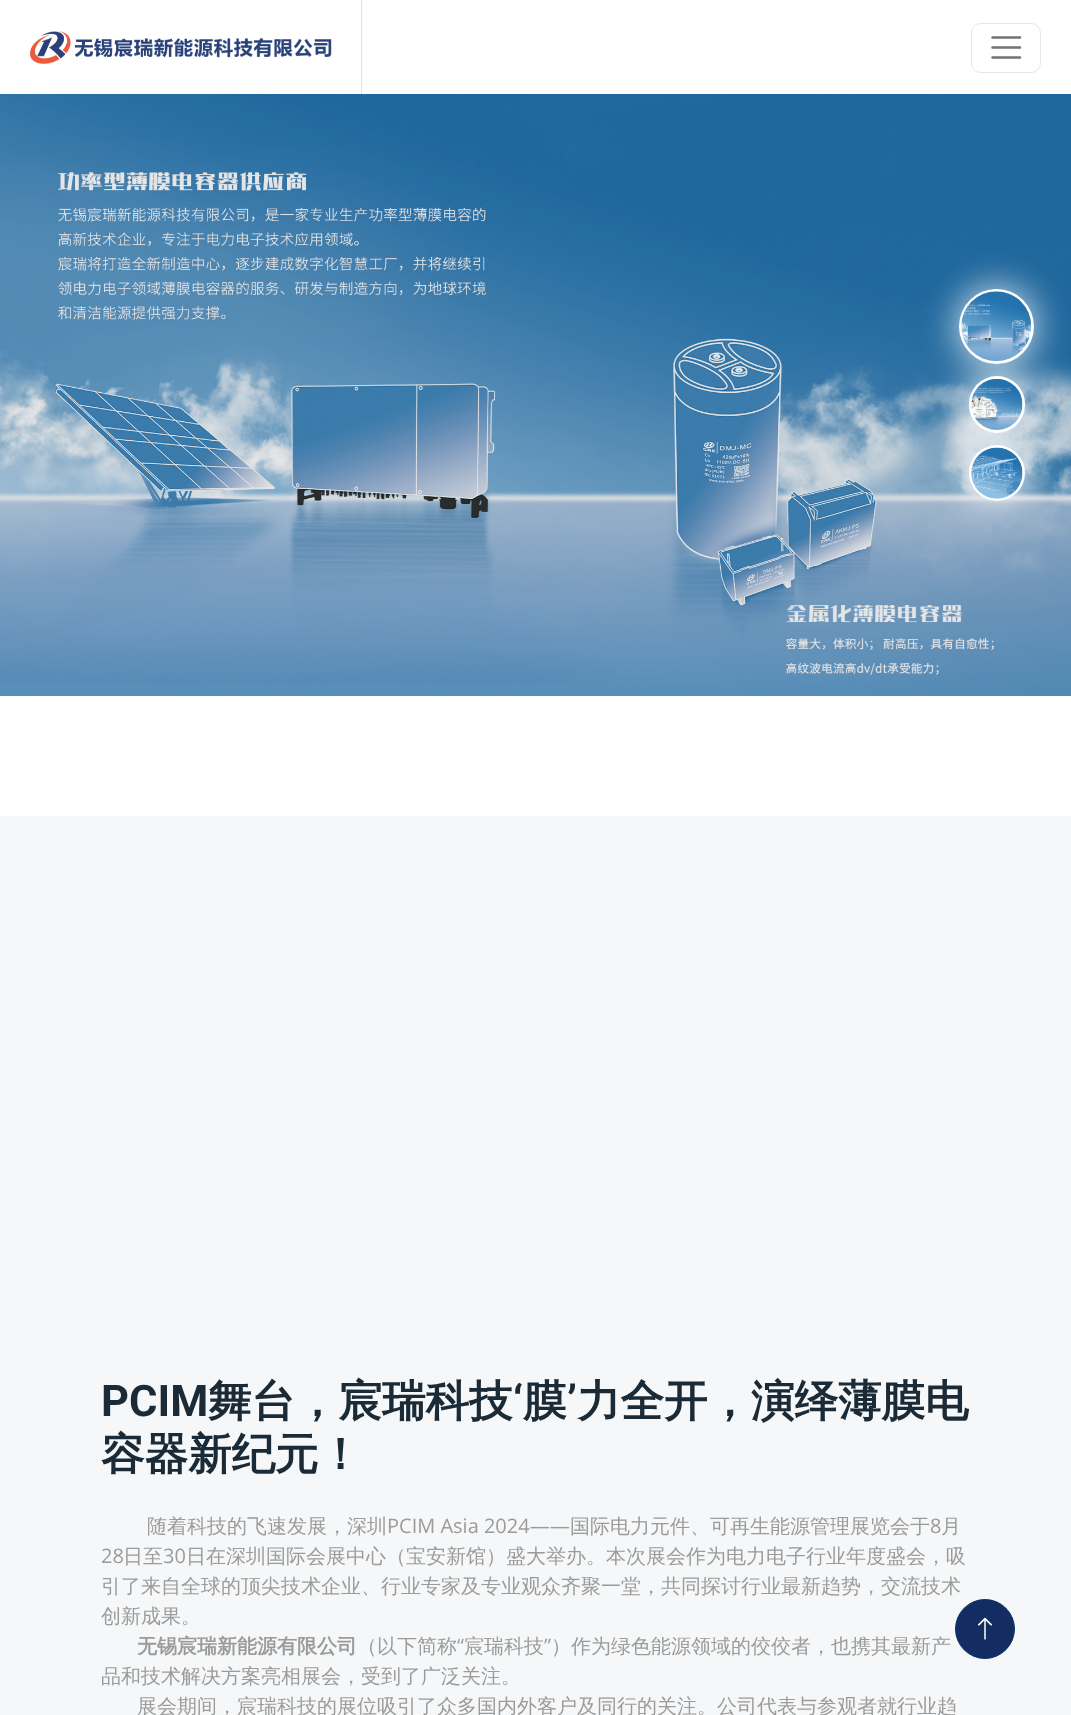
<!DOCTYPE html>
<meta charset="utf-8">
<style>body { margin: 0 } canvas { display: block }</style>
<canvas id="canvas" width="1071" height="1715"></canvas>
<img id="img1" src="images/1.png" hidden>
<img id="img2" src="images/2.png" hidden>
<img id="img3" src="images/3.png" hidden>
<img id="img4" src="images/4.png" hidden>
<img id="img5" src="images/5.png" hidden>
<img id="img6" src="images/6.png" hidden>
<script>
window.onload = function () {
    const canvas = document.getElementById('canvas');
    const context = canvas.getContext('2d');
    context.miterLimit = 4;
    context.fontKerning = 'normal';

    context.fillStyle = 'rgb(255, 255, 255)';
    context.fillRect(0, 0, 1071, 1715);
    context.fillStyle = 'rgb(222, 226, 230)';
    context.fillRect(361, 0, 1, 94);
    context.drawImage(document.getElementById('img1'), 30, 31, 302, 33);
    context.beginPath();
    context.roundRect(971.5, 23.5, 69, 49, 9.5);
    context.strokeStyle = 'rgb(230, 230, 230)';
    context.stroke();
    context.beginPath();
    context.moveTo(992.5, 37.5);
    context.lineTo(1020, 37.5);
    context.moveTo(992.5, 47.5);
    context.lineTo(1020, 47.5);
    context.moveTo(992.5, 57.5);
    context.lineTo(1020, 57.5);
    context.strokeStyle = 'rgb(115, 115, 115)';
    context.lineWidth = 2.5;
    context.lineCap = 'round';
    context.stroke();
    context.drawImage(document.getElementById('img2'), 0, 94, 1071, 602);
    context.fillStyle = 'rgba(255, 255, 255, 0.9)';
    context.filter = 'blur(19px)';
    context.beginPath();
    context.roundRect(959, 289, 75, 75, 37.5);
    context.fill();
    context.filter = 'none';
    context.fillStyle = 'rgb(255, 255, 255)';
    context.beginPath();
    context.arc(996.5, 326.5, 37.5, 0, 2 * Math.PI);
    context.fill();
    context.drawImage(document.getElementById('img3'), 961, 291, 71, 71);
    context.fillStyle = 'rgba(255, 255, 255, 0.9)';
    context.filter = 'blur(19px)';
    context.beginPath();
    context.roundRect(969, 376, 56, 57, 28);
    context.fill();
    context.filter = 'none';
    context.fillStyle = 'rgb(255, 255, 255)';
    context.beginPath();
    context.roundRect(969, 376, 56, 57, 28);
    context.fill();
    context.drawImage(document.getElementById('img4'), 971, 378, 52, 52);
    context.fillStyle = 'rgba(255, 255, 255, 0.9)';
    context.filter = 'blur(19px)';
    context.beginPath();
    context.roundRect(969, 445, 56, 56, 28);
    context.fill();
    context.filter = 'none';
    context.fillStyle = 'rgb(255, 255, 255)';
    context.beginPath();
    context.arc(997, 473, 28, 0, 2 * Math.PI);
    context.fill();
    context.drawImage(document.getElementById('img5'), 971, 447, 52, 52);
    context.fillStyle = 'rgb(246, 247, 248)';
    context.fillRect(0, 816, 1071, 899);
    context.fillStyle = 'rgb(19, 44, 98)';
    context.beginPath();
    context.arc(985, 1629, 29.5, 0, 2 * Math.PI);
    context.fill();
    context.strokeStyle = 'rgb(10, 51, 101)';
    context.lineWidth = 1;
    context.stroke();
    context.drawImage(document.getElementById('img6'), 978, 1617, 14, 23);
    context.font = 'bold 43.5px Roboto';
    context.fillStyle = 'rgb(26, 42, 54)';
    context.fillText('PCIM', 101, 1416);
    context.font = 'bold 43.5px WenQuanYi Zen Hei';
    context.fillText('舞台，宸瑞科技', 208, 1416);
    context.font = 'bold 43.5px Roboto';
    context.fillText('‘', 513, 1416);
    context.font = 'bold 43.5px WenQuanYi Zen Hei';
    context.fillText('膜', 523, 1416);
    context.font = 'bold 43.5px Roboto';
    context.fillText('’', 567, 1416);
    context.font = 'bold 43.5px WenQuanYi Zen Hei';
    context.fillText('力全开，演绎薄膜电', 577, 1416);
    context.fillText('容器新纪元！', 101, 1469);
    context.font = '500 20px WenQuanYi Zen Hei';
    context.fillStyle = 'rgb(155, 155, 155)';
    context.fillText('随着科技的飞速发展，深圳', 147, 1533);
    context.font = '20px Open Sans';
    context.fillText('PCIM Asia 2024——', 387, 1533);
    context.font = '500 20px WenQuanYi Zen Hei';
    context.fillText('国际电力元件、可再生能源管理展览会于', 570, 1533);
    context.font = '20px Open Sans';
    context.fillText('8', 930, 1533);
    context.font = '500 20px WenQuanYi Zen Hei';
    context.fillText('月', 941, 1533);
    context.font = '20px Open Sans';
    context.fillText('28', 101, 1563);
    context.font = '500 20px WenQuanYi Zen Hei';
    context.fillText('日至', 123, 1563);
    context.font = '20px Open Sans';
    context.fillText('30', 163, 1563);
    context.font = '500 20px WenQuanYi Zen Hei';
    context.fillText('日在深圳国际会展中心（宝安新馆）盛大举办。本次展会作为电力电子行业年度盛会，吸', 186, 1563);
    context.fillText('引了来自全球的顶尖技术企业、行业专家及专业观众齐聚一堂，共同探讨行业最新趋势，交流技术', 101, 1593);
    context.fillText('创新成果。', 101, 1623);
    context.font = 'bold 20px WenQuanYi Zen Hei';
    context.fillText('无锡宸瑞新能源有限公司', 137, 1653);
    context.font = '500 20px WenQuanYi Zen Hei';
    context.fillText('（以下简称', 357, 1653);
    context.font = '20px Open Sans';
    context.fillText('“', 457, 1653);
    context.font = '500 20px WenQuanYi Zen Hei';
    context.fillText('宸瑞科技', 464, 1653);
    context.font = '20px Open Sans';
    context.fillText('”', 544, 1653);
    context.font = '500 20px WenQuanYi Zen Hei';
    context.fillText('）作为绿色能源领域的佼佼者，也携其最新产', 551, 1653);
    context.fillText('品和技术解决方案亮相展会，受到了广泛关注。', 101, 1683);
    context.fillText('展会期间，宸瑞科技的展位吸引了众多国内外客户及同行的关注。公司代表与参观者就行业趋', 137, 1713);
};
</script>
